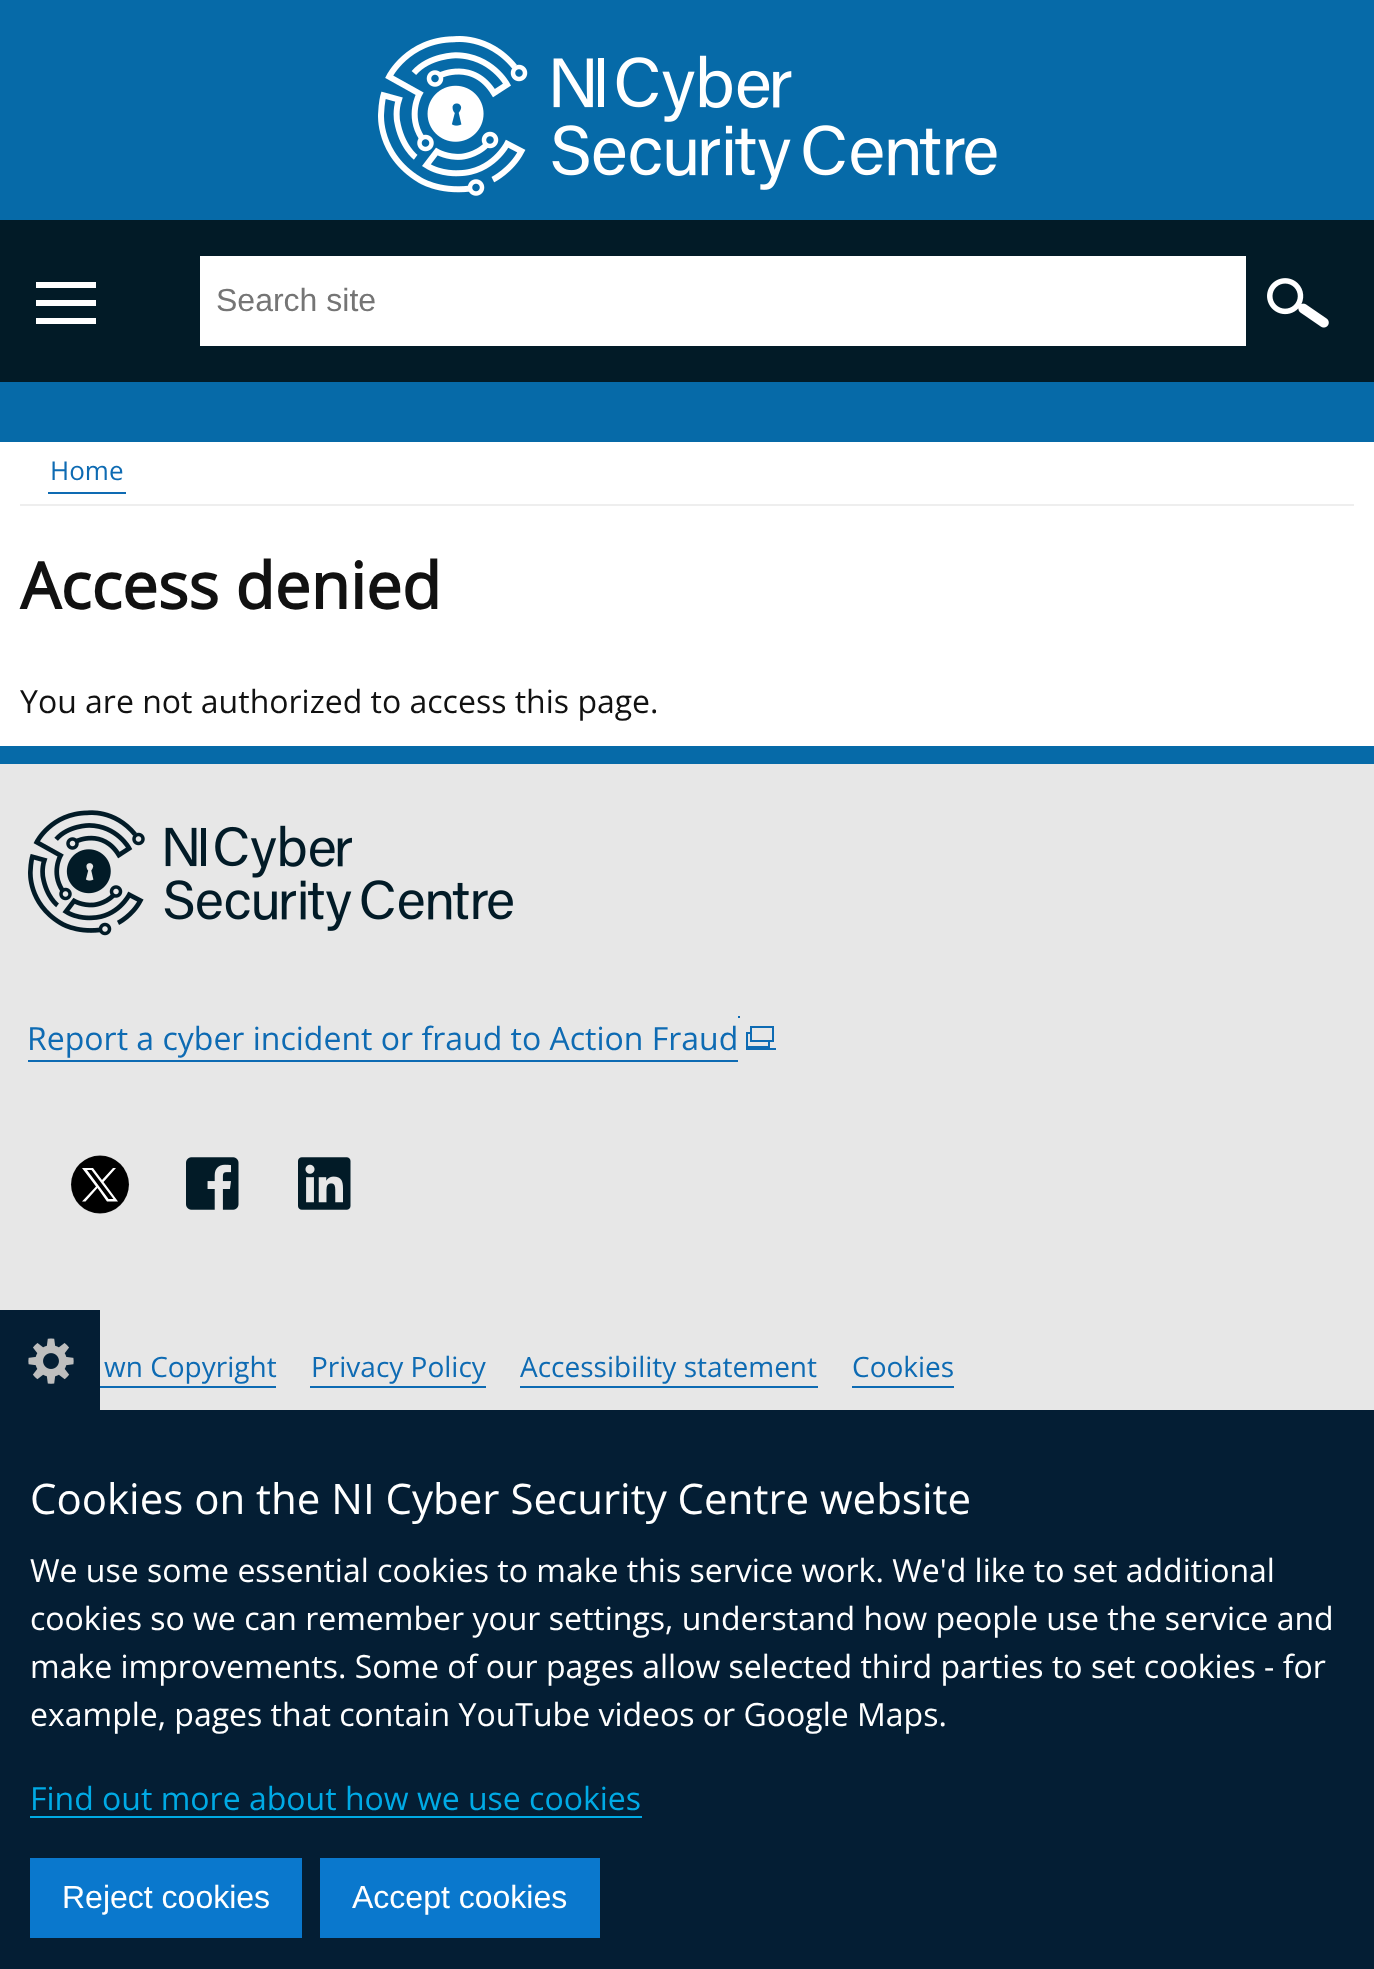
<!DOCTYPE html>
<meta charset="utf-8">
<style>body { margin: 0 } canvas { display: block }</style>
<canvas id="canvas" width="1374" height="1969"></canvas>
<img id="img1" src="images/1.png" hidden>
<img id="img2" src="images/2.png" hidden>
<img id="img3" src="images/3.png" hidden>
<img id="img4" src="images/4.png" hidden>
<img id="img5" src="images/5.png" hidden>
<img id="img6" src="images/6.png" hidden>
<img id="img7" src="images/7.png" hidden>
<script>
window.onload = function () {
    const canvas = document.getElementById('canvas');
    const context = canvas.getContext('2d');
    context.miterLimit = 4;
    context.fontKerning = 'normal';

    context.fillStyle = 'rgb(255, 255, 255)';
    context.fillRect(0, 0, 1374, 1969);
    context.fillStyle = 'rgb(6, 106, 168)';
    context.fillRect(0, 0, 1374, 442);
    context.fillStyle = 'rgb(2, 27, 39)';
    context.fillRect(0, 220, 1374, 162);
    context.fillStyle = 'rgb(255, 255, 255)';
    context.fillRect(36, 300, 60, 6);
    context.fillRect(36, 282, 60, 6);
    context.fillRect(36, 318, 60, 6);
    context.drawImage(document.getElementById('img1'), 378, 36, 619, 160);
    context.fillRect(200, 256, 1046, 90);
    context.drawImage(document.getElementById('img2'), 1267, 278, 62, 50);
    context.fillStyle = 'rgb(238, 238, 238)';
    context.fillRect(20, 504, 1334, 2);
    context.fillStyle = 'rgb(14, 107, 179)';
    context.fillRect(48, 492, 78, 2);
    context.fillStyle = 'rgb(231, 231, 231)';
    context.fillRect(0, 764, 1374, 646);
    context.fillStyle = 'rgb(6, 106, 168)';
    context.fillRect(0, 746, 1374, 18);
    context.drawImage(document.getElementById('img3'), 28, 810, 485, 126);
    context.fillStyle = 'rgb(14, 107, 179)';
    context.fillRect(28, 1060, 710, 2);
    context.fillRect(738, 1016, 2, 2);
    context.fillRect(746, 1048, 30, 2);
    context.drawImage(document.getElementById('img4'), 746, 1026, 28, 22);
    context.fillStyle = 'rgb(0, 0, 0)';
    context.beginPath();
    context.arc(100, 1184.5, 29, 0, 2 * Math.PI);
    context.fill();
    context.strokeStyle = 'rgb(255, 255, 255)';
    context.lineWidth = 0.1;
    context.stroke();
    context.fillStyle = 'rgb(255, 255, 255)';
    context.beginPath();
    context.moveTo(82, 1168);
    context.lineTo(96, 1186.5);
    context.lineTo(82, 1201.5);
    context.lineTo(85.5, 1201.5);
    context.lineTo(97.5, 1188);
    context.lineTo(107, 1201.5);
    context.lineTo(118, 1201.5);
    context.lineTo(103.5, 1182);
    context.lineTo(116, 1168);
    context.lineTo(113, 1168);
    context.lineTo(102, 1180);
    context.lineTo(93, 1168);
    context.closePath();
    context.moveTo(87, 1170);
    context.lineTo(91.5, 1170);
    context.lineTo(113.5, 1199);
    context.lineTo(108.5, 1199);
    context.closePath();
    context.fill();
    context.drawImage(document.getElementById('img5'), 186, 1157, 53, 53);
    context.drawImage(document.getElementById('img6'), 298, 1157, 53, 53);
    context.fillStyle = 'rgb(14, 107, 179)';
    context.fillRect(100, 1386, 176, 2);
    context.fillRect(310, 1386, 176, 2);
    context.fillRect(520, 1386, 298, 2);
    context.fillRect(852, 1386, 102, 2);
    context.fillStyle = 'rgb(4, 30, 52)';
    context.fillRect(0, 1310, 100, 100);
    context.drawImage(document.getElementById('img7'), 28, 1338, 46, 46);
    context.fillRect(0, 1410, 1374, 559);
    context.fillStyle = 'rgb(0, 170, 229)';
    context.fillRect(30, 1816, 612, 2);
    context.fillStyle = 'rgb(10, 120, 205)';
    context.fillRect(30, 1858, 272, 80);
    context.fillRect(320, 1858, 280, 80);
    context.font = '32px Liberation Sans';
    context.fillStyle = 'rgb(117, 117, 117)';
    context.fillText('Search site', 216, 311);
    context.font = '26px Open Sans';
    context.fillStyle = 'rgb(14, 107, 179)';
    context.fillText('Home', 50, 480);
    context.font = 'bold 64px Open Sans';
    context.fillStyle = 'rgb(17, 17, 17)';
    context.fillText('Access denied', 20, 609);
    context.font = '32px Open Sans';
    context.fillText('You are not authorized to access this page.', 20, 713);
    context.fillStyle = 'rgb(14, 107, 179)';
    context.fillText('Report a cyber incident or fraud to Action Fraud', 27, 1050);
    context.font = '28px Open Sans';
    context.fillText('wn Copyright', 104, 1377);
    context.fillText('Privacy Policy', 311, 1377);
    context.fillText('Accessibility statement', 520, 1377);
    context.fillText('Cookies', 852, 1377);
    context.font = '42px Open Sans';
    context.fillStyle = 'rgb(255, 255, 255)';
    context.fillText('Cookies on the NI Cyber Security Centre website', 30, 1514);
    context.font = '32px Open Sans';
    context.fillText('We use some essential cookies to make this service work. We\'d like to set additional', 30, 1582);
    context.fillText('cookies so we can remember your settings, understand how people use the service and', 30, 1630);
    context.fillText('make improvements. Some of our pages allow selected third parties to set cookies - for', 30, 1678);
    context.fillText('example, pages that contain YouTube videos or Google Maps.', 30, 1726);
    context.fillStyle = 'rgb(0, 170, 229)';
    context.fillText('Find out more about how we use cookies', 30, 1810);
    context.font = '32px Liberation Sans';
    context.fillStyle = 'rgb(255, 255, 255)';
    context.fillText('Reject cookies', 62, 1908);
    context.fillText('Accept cookies', 352, 1908);
};
</script>
